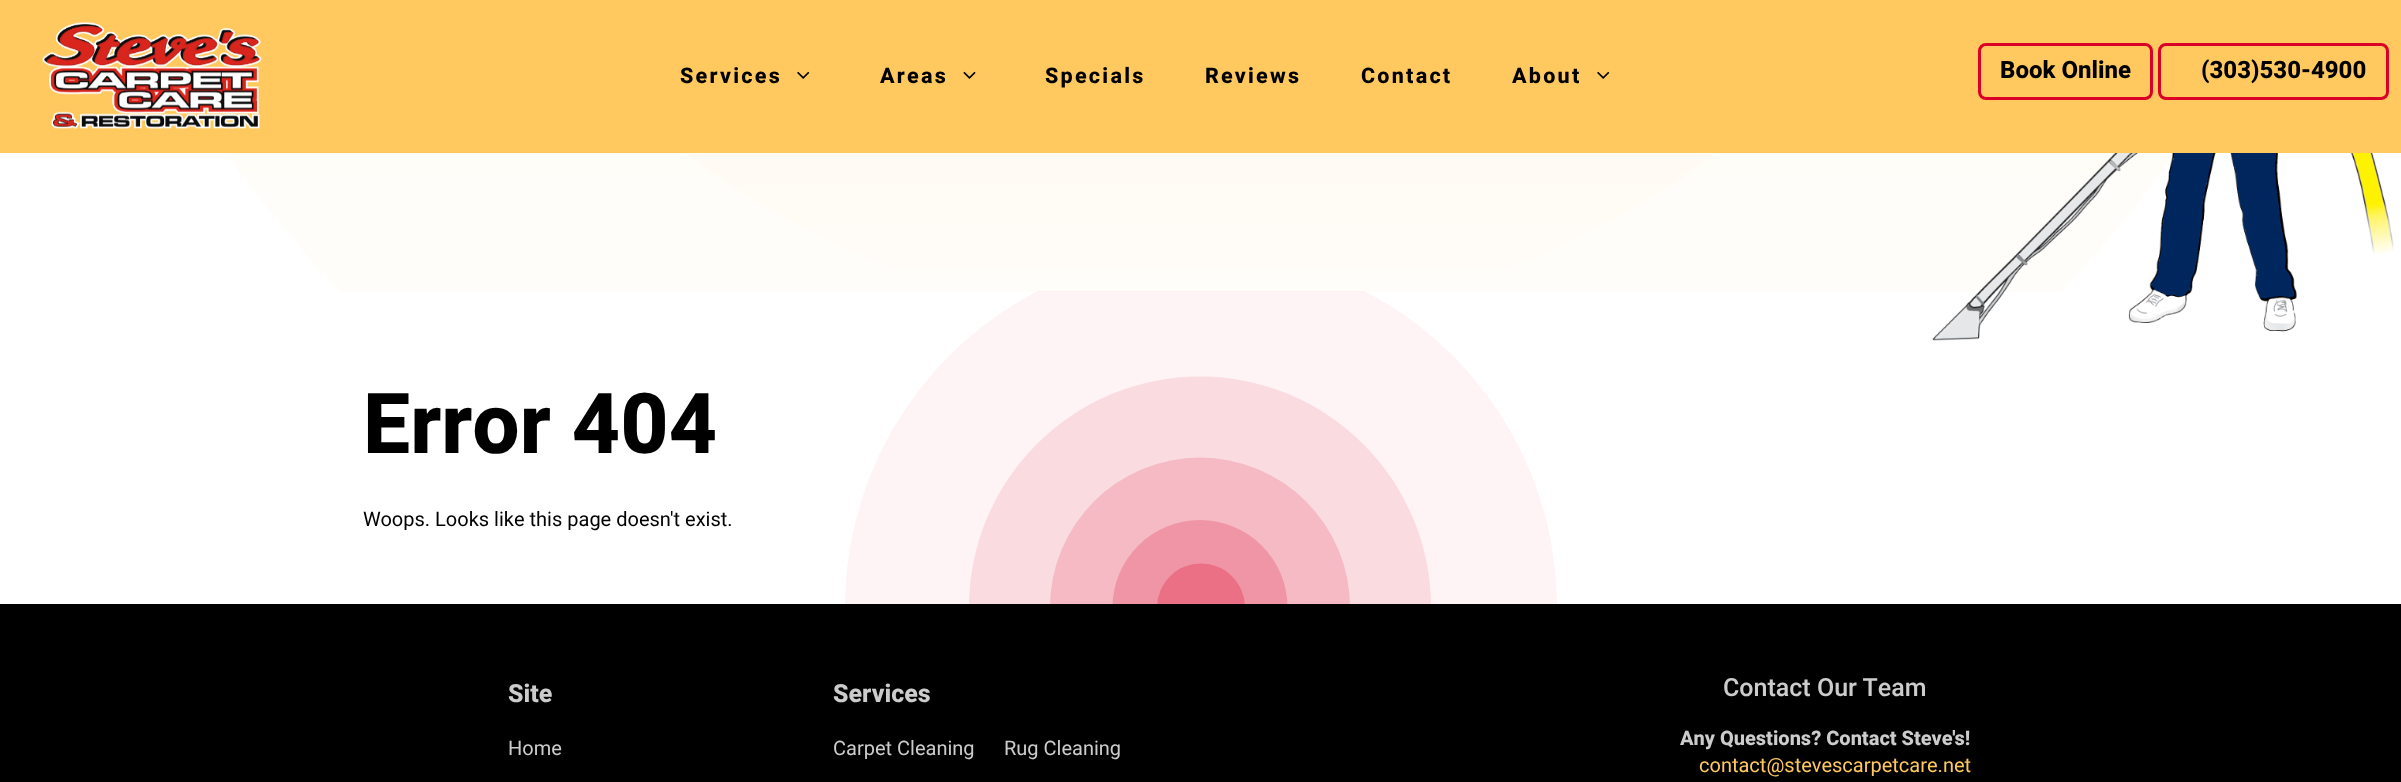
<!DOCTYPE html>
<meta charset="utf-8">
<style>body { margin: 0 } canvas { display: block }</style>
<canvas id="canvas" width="2401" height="782"></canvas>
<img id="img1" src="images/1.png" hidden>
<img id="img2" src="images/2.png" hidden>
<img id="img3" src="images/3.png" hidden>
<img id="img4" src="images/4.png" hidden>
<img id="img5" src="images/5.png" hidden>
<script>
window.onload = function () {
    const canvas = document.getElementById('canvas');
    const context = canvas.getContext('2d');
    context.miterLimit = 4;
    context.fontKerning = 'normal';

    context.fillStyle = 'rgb(255, 255, 255)';
    context.fillRect(0, 0, 2401, 782);
    context.fillStyle = 'rgb(255, 201, 96)';
    context.fillRect(0, 0, 2401, 153);
    context.drawImage(document.getElementById('img1'), 42, 22, 220, 107);
    context.drawImage(document.getElementById('img2'), 797, 71, 13, 8);
    context.drawImage(document.getElementById('img3'), 963, 71, 13, 8);
    context.drawImage(document.getElementById('img2'), 1597, 71, 13, 8);
    context.beginPath();
    context.roundRect(1979.5, 44.5, 172, 54, 6.5);
    context.strokeStyle = 'rgb(219, 0, 39)';
    context.lineWidth = 3;
    context.stroke();
    context.beginPath();
    context.roundRect(2159.5, 44.5, 228, 54, 6.5);
    context.stroke();
    context.save();
    context.beginPath();
    context.rect(845, 291, 713, 313);
    context.clip();
    context.fillStyle = 'rgb(254, 243, 245)';
    context.beginPath();
    context.arc(1201, 607.5, 356, 0, 2 * Math.PI);
    context.fill();
    context.restore();
    context.drawImage(document.getElementById('img4'), 227, 153, 1946, 139);
    context.drawImage(document.getElementById('img5'), 1932, 153, 462, 188);
    context.fillStyle = 'rgb(250, 219, 224)';
    context.beginPath();
    context.arc(1200, 607.5, 231, 0, 2 * Math.PI);
    context.fill();
    context.fillStyle = 'rgb(245, 186, 196)';
    context.beginPath();
    context.arc(1200, 607.5, 150, 0, 2 * Math.PI);
    context.fill();
    context.fillStyle = 'rgb(240, 149, 165)';
    context.beginPath();
    context.arc(1200, 607.5, 87.5, 0, 2 * Math.PI);
    context.fill();
    context.fillStyle = 'rgb(235, 112, 134)';
    context.beginPath();
    context.arc(1201, 607.5, 44, 0, 2 * Math.PI);
    context.fill();
    context.fillStyle = 'rgb(0, 0, 0)';
    context.fillRect(0, 604, 2401, 178);
    context.letterSpacing = '2.25px';
    context.font = '800 21.5px Heebo';
    context.fillText('Services', 680, 83);
    context.fillText('Areas', 880, 83);
    context.fillText('Specials', 1045, 83);
    context.fillText('Reviews', 1205, 83);
    context.fillText('Contact', 1361, 83);
    context.fillText('About', 1512, 83);
    context.letterSpacing = '0px';
    context.font = '800 24px Heebo';
    context.fillText('Book Online', 2000, 78);
    context.fillText('(303)530-4900', 2201, 78);
    context.font = '800 84px Heebo';
    context.fillText('Error 404', 363, 453);
    context.font = '20px Heebo';
    context.fillText('Woops. Looks like this page doesn\'t exist.', 363, 526);
    context.font = '800 25px Heebo';
    context.fillStyle = 'rgb(204, 204, 204)';
    context.fillText('Site', 508, 702);
    context.font = '20px Heebo';
    context.fillText('Home', 508, 755);
    context.font = '800 25px Heebo';
    context.fillText('Services', 833, 702);
    context.font = '20px Heebo';
    context.fillText('Carpet Cleaning', 833, 755);
    context.fillText('Rug Cleaning', 1004, 755);
    context.font = '500 25px Heebo';
    context.fillText('Contact Our Team', 1723, 696);
    context.font = '800 20px Heebo';
    context.fillText('Any Questions? Contact Steve\'s!', 1680, 745);
    context.font = '20px Heebo';
    context.fillStyle = 'rgb(255, 201, 96)';
    context.fillText('contact@stevescarpetcare.net', 1699, 772);
};
</script>
